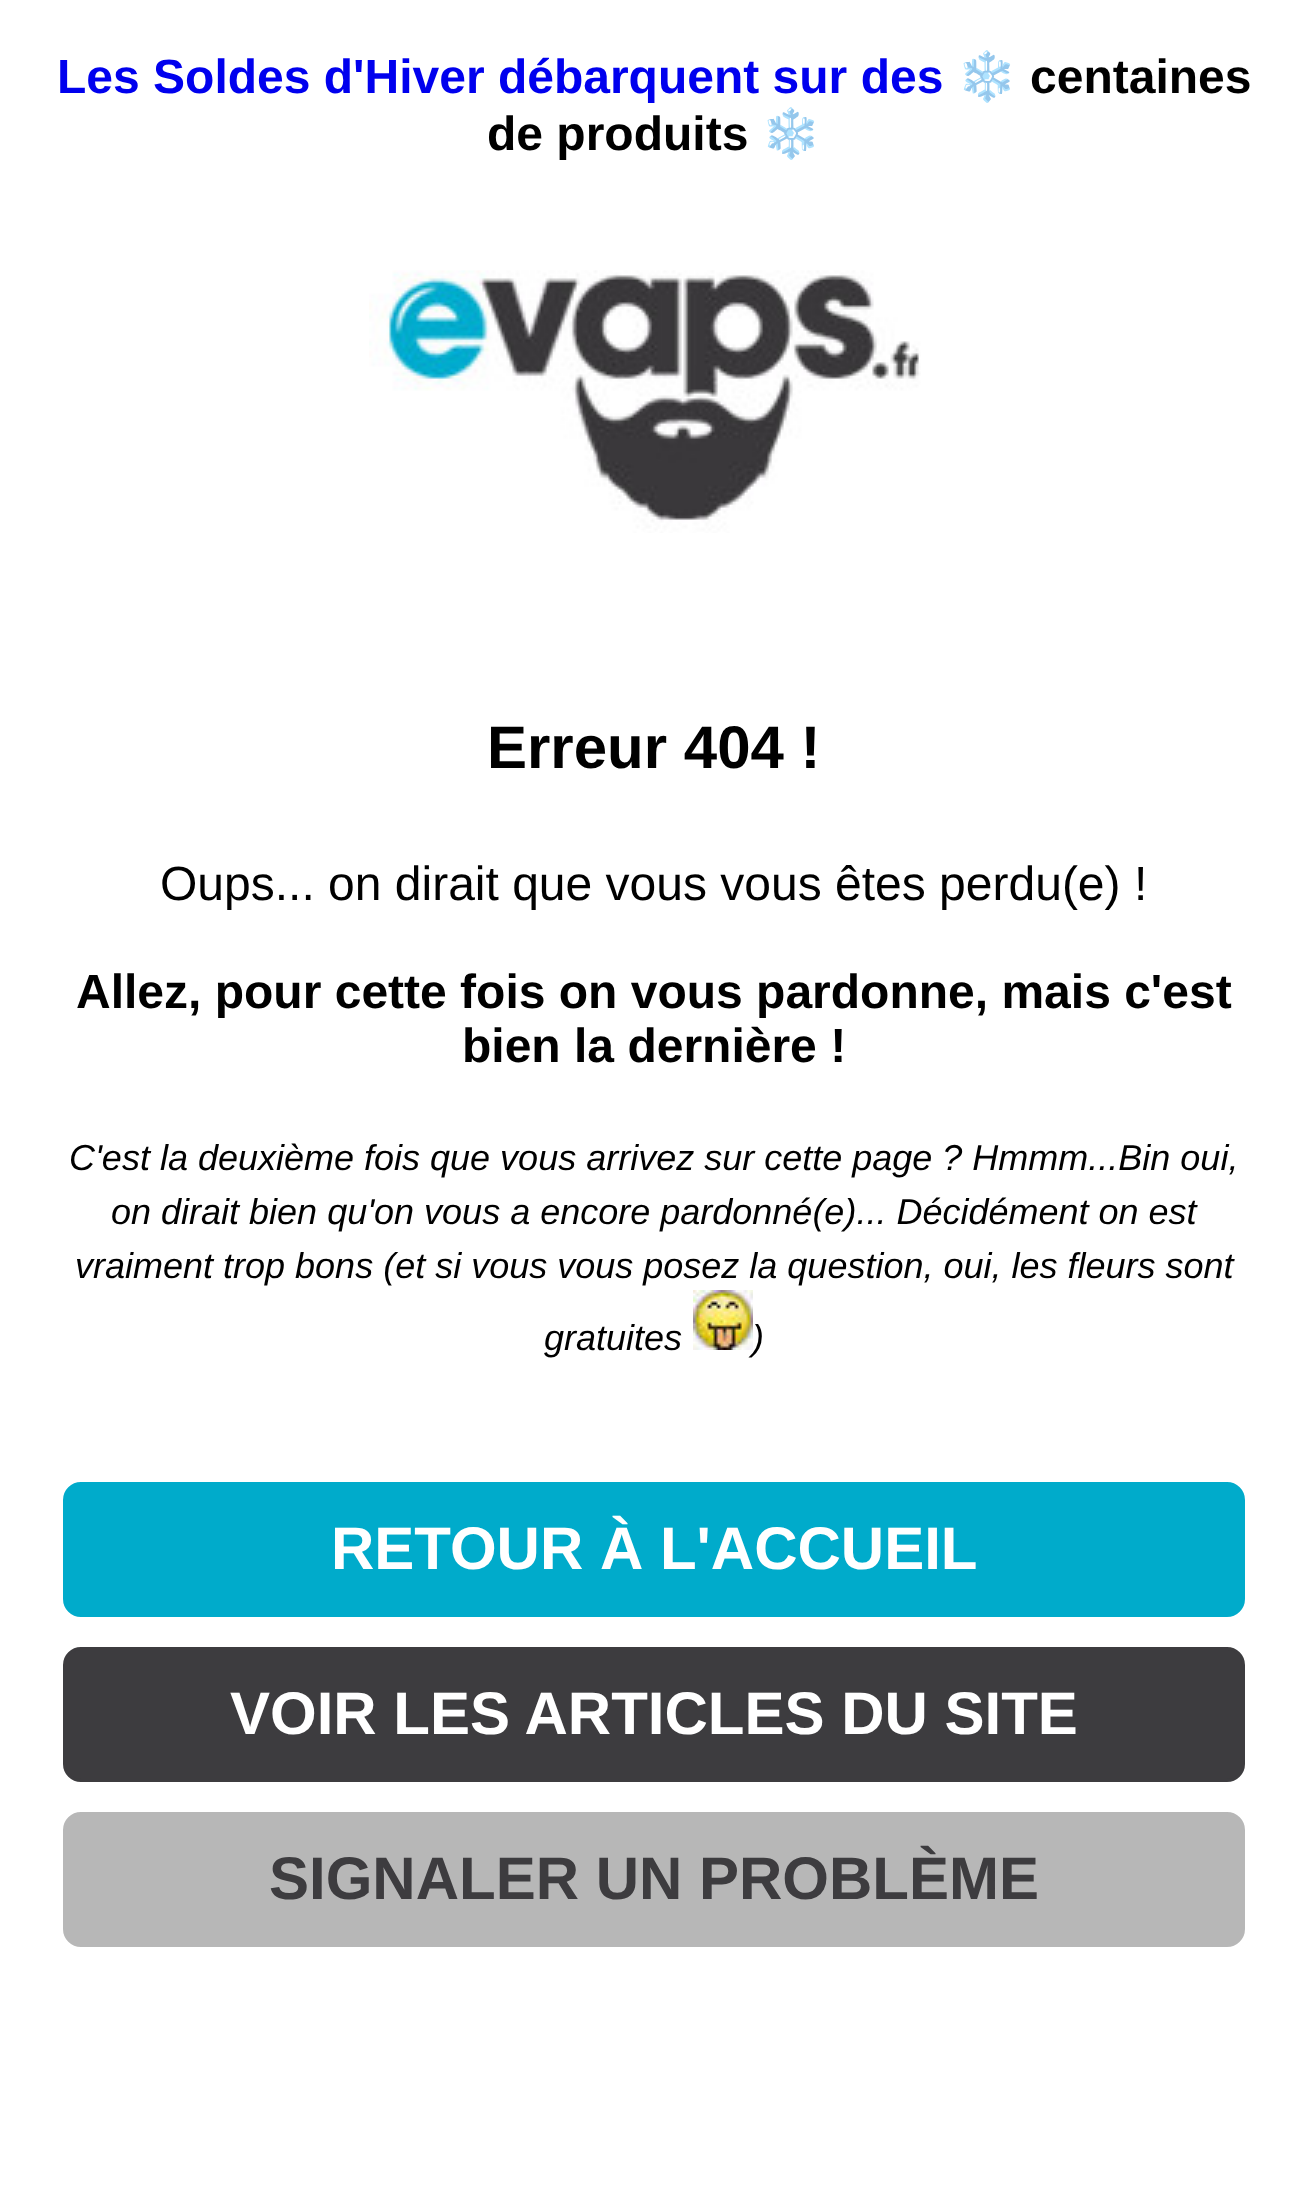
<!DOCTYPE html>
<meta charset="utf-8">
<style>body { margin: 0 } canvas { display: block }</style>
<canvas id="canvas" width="1308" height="2203"></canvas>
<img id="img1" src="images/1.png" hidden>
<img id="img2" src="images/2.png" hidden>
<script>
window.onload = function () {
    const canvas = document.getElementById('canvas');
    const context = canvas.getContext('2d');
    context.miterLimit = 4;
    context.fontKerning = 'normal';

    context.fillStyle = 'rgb(255, 255, 255)';
    context.fillRect(0, 0, 1308, 2203);
    context.drawImage(document.getElementById('img1'), 369, 270, 552, 263);
    context.drawImage(document.getElementById('img2'), 693, 1290, 60, 60);
    context.fillStyle = 'rgb(0, 171, 203)';
    context.beginPath();
    context.roundRect(64.5, 1483.5, 1179, 132, 16.5);
    context.fill();
    context.strokeStyle = 'rgb(0, 171, 203)';
    context.lineWidth = 3;
    context.stroke();
    context.fillStyle = 'rgb(61, 60, 63)';
    context.beginPath();
    context.roundRect(64.5, 1648.5, 1179, 132, 16.5);
    context.fill();
    context.strokeStyle = 'rgb(61, 60, 63)';
    context.stroke();
    context.fillStyle = 'rgb(183, 183, 183)';
    context.beginPath();
    context.roundRect(64.5, 1813.5, 1179, 132, 16.5);
    context.fill();
    context.strokeStyle = 'rgb(183, 183, 183)';
    context.stroke();
    context.font = 'bold 48px Liberation Sans';
    context.fillStyle = 'rgb(0, 0, 238)';
    context.fillText('Les Soldes d\'Hiver débarquent sur des', 57, 93);
    context.font = 'bold 48px Noto Color Emoji';
    context.fillText('❄️', 957, 93);
    context.font = 'bold 48px Liberation Sans';
    context.fillStyle = 'rgb(0, 0, 0)';
    context.fillText('centaines', 1030, 93);
    context.fillText('de produits', 487, 150);
    context.font = 'bold 48px Noto Color Emoji';
    context.fillStyle = 'rgb(0, 0, 238)';
    context.fillText('❄️', 761, 150);
    context.font = 'bold 60px Liberation Sans';
    context.fillStyle = 'rgb(0, 0, 0)';
    context.fillText('Erreur 404 !', 487, 768);
    context.font = '48px Liberation Sans';
    context.fillText('Oups... on dirait que vous vous êtes perdu(e) !', 160, 900);
    context.font = 'bold 48px Liberation Sans';
    context.fillText('Allez, pour cette fois on vous pardonne, mais c\'est', 76, 1008);
    context.fillText('bien la dernière !', 462, 1062);
    context.font = 'italic 36px Liberation Sans';
    context.fillText('C\'est la deuxième fois que vous arrivez sur cette page ? Hmmm...Bin oui,', 69, 1170);
    context.fillText('on dirait bien qu\'on vous a encore pardonné(e)... Décidément on est', 111, 1224);
    context.fillText('vraiment trop bons (et si vous vous posez la question, oui, les fleurs sont', 75, 1278);
    context.fillText('gratuites', 544, 1350);
    context.fillText(')', 752, 1350);
    context.font = 'bold 60px Liberation Sans';
    context.fillStyle = 'rgb(255, 255, 255)';
    context.fillText('RETOUR À L\'ACCUEIL', 331, 1569);
    context.fillText('VOIR LES ARTICLES DU SITE', 230, 1734);
    context.fillStyle = 'rgb(61, 60, 63)';
    context.fillText('SIGNALER UN PROBLÈME', 269, 1899);
};
</script>
